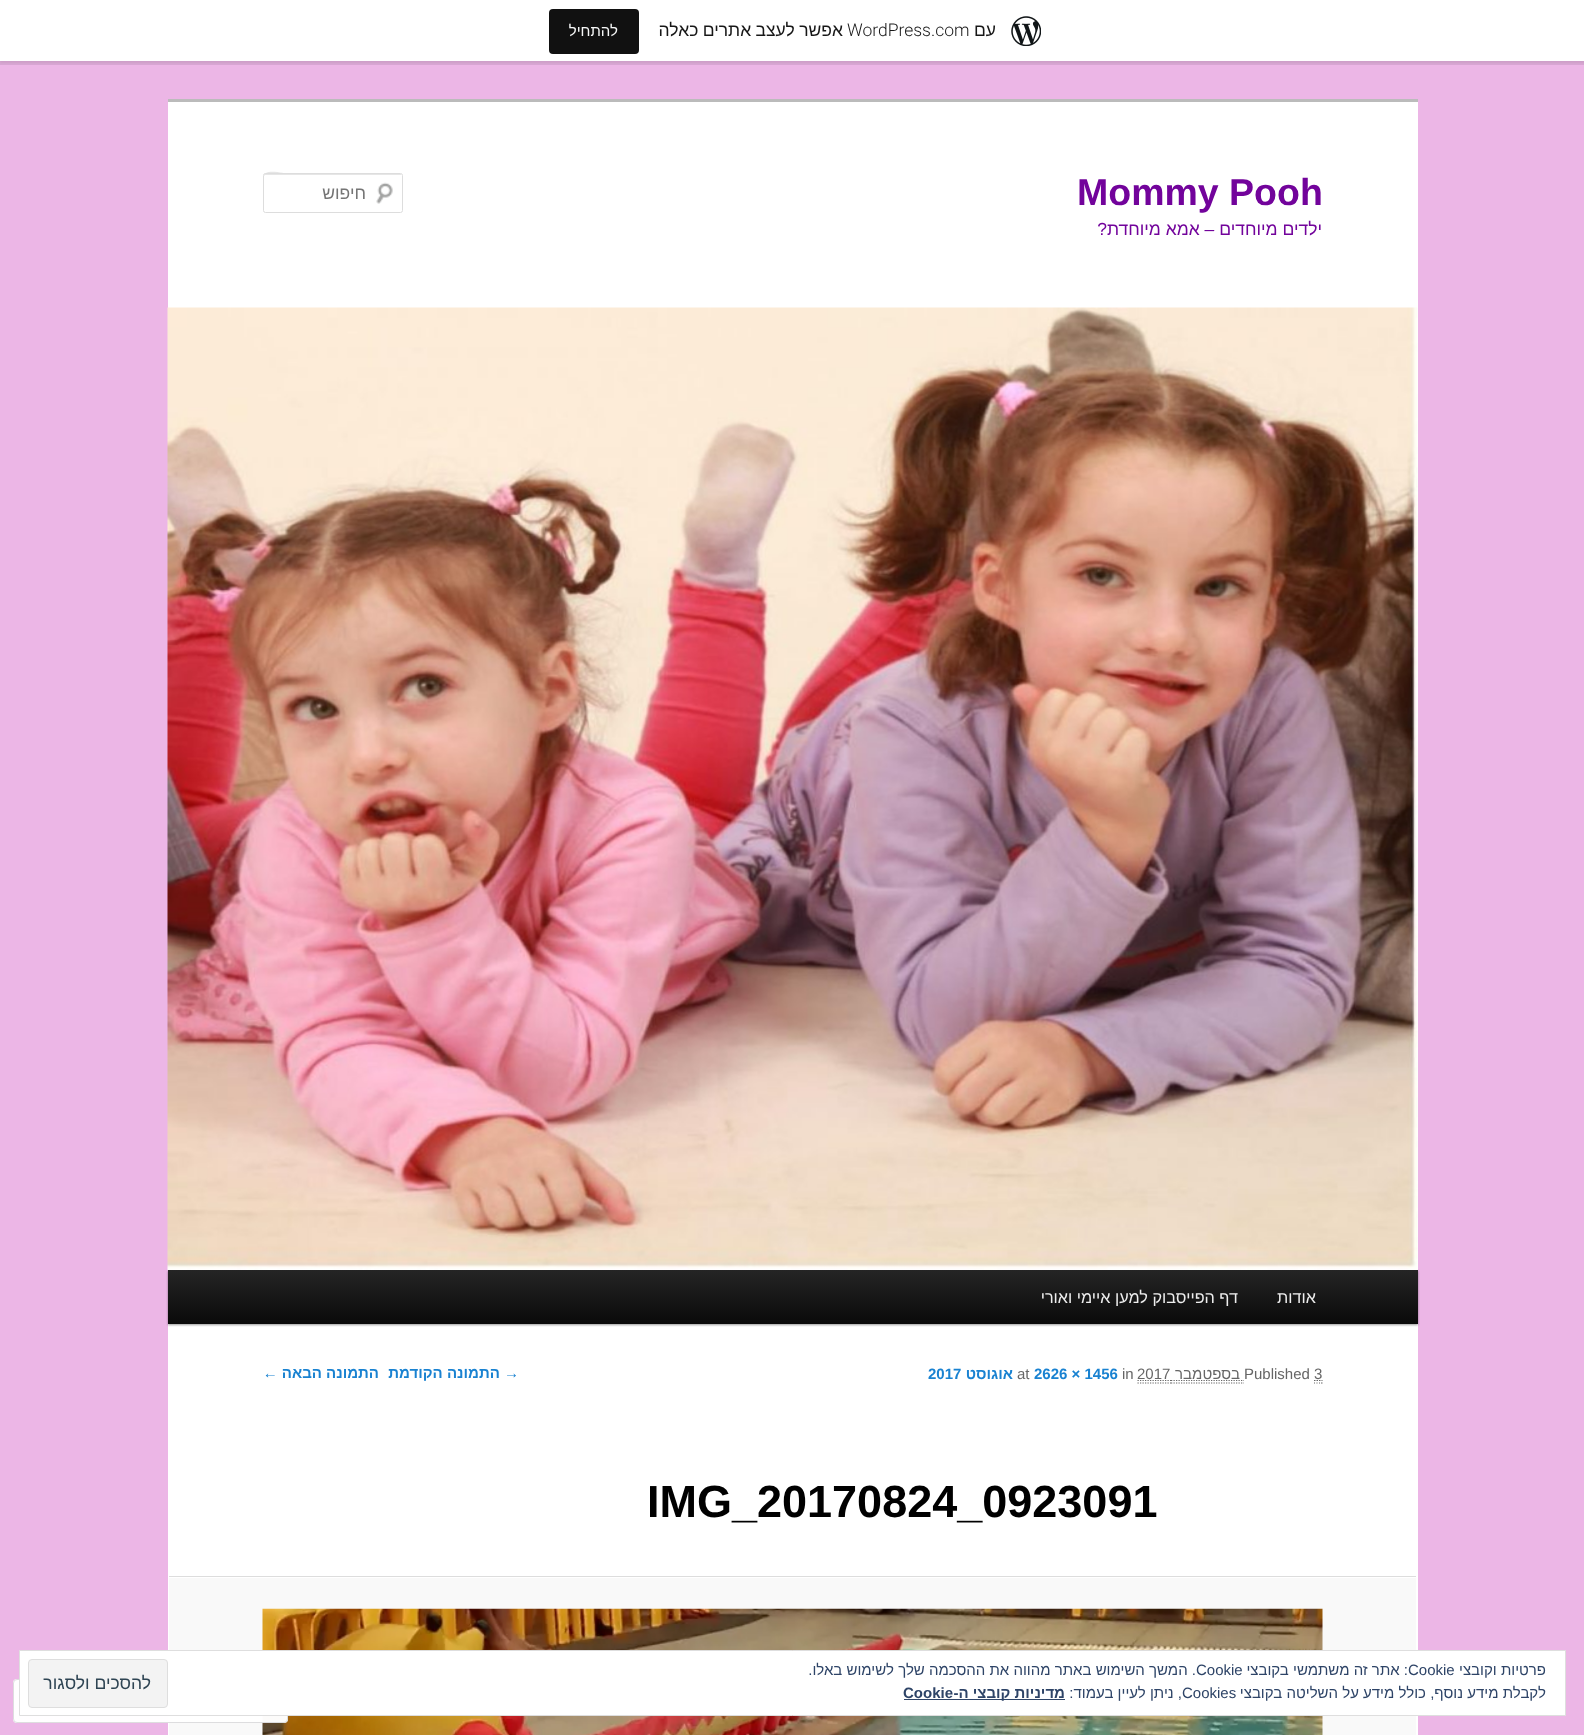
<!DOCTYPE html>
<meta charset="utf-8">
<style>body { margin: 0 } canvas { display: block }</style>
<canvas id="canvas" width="1584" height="1735"></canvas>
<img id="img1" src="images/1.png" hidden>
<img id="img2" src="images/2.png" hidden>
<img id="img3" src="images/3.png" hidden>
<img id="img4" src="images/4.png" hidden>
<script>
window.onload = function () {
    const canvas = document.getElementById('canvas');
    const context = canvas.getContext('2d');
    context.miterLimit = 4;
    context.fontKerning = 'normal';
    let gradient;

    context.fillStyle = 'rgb(236, 182, 230)';
    context.fillRect(0, 0, 1584, 1735);
    context.fillStyle = 'rgba(0, 0, 0, 0.05)';
    context.filter = 'blur(1px)';
    context.beginPath();
    context.rect(0, 1, 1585, 62);
    context.fill();
    context.filter = 'none';
    context.fillStyle = 'rgba(0, 0, 0, 0.08)';
    context.beginPath();
    context.moveTo(-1, 4);
    context.lineTo(-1, 65);
    context.lineTo(1584, 65);
    context.lineTo(1584, 61);
    context.lineTo(0, 61);
    context.lineTo(0, 4);
    context.closePath();
    context.fill();
    context.fillStyle = 'rgb(255, 255, 255)';
    context.fillRect(0, 0, 1584, 61);
    context.drawImage(document.getElementById('img1'), 1011, 16, 30, 30);
    context.fillStyle = 'rgb(17, 17, 17)';
    context.beginPath();
    context.roundRect(549, 9, 90, 45, 4);
    context.fill();
    context.fillStyle = 'rgb(255, 255, 255)';
    context.fillRect(168, 102, 1250, 1633);
    context.fillStyle = 'rgb(187, 187, 187)';
    context.fillRect(168, 99, 1250, 3);
    context.drawImage(document.getElementById('img2'), 376, 182, 17, 22);
    context.fillStyle = 'rgb(230, 230, 230)';
    context.beginPath();
    context.moveTo(265, 175);
    context.lineTo(401, 175);
    context.lineTo(401, 176);
    context.lineTo(401, 174);
    context.lineTo(288, 174);
    context.bezierCurveTo(287, 174, 264, 168, 264, 176);
    context.closePath();
    context.fill();
    context.beginPath();
    context.roundRect(263.5, 173.5, 139, 39, 2);
    context.strokeStyle = 'rgb(221, 221, 221)';
    context.stroke();
    context.fillStyle = 'rgba(0, 0, 0, 0.4)';
    context.filter = 'blur(1px)';
    context.beginPath();
    context.rect(168, 1271, 1250, 54);
    context.fill();
    context.filter = 'none';
    context.drawImage(document.getElementById('img3'), 167, 307, 1251, 963);
    gradient = context.createLinearGradient(793, 1270, 793, 1324);
    gradient.addColorStop(0, 'rgb(37, 37, 37)');
    gradient.addColorStop(1, 'rgb(10, 10, 10)');
    context.fillStyle = gradient;
    context.fillRect(168, 1270, 1250, 54);
    context.beginPath();
    context.moveTo(1314, 1383);
    context.lineTo(1315, 1383);
    context.moveTo(1316.5, 1383);
    context.lineTo(1317.5, 1383);
    context.moveTo(1319, 1383);
    context.lineTo(1320, 1383);
    context.moveTo(1321, 1383);
    context.lineTo(1322.5, 1383);
    context.strokeStyle = 'rgb(102, 102, 102)';
    context.lineWidth = 1.2;
    context.stroke();
    context.beginPath();
    context.moveTo(1314, 1380.5);
    context.lineTo(1315.5, 1380.5);
    context.moveTo(1316.5, 1380.5);
    context.lineTo(1318, 1380.5);
    context.moveTo(1319, 1380.5);
    context.lineTo(1320.5, 1380.5);
    context.moveTo(1321.5, 1380.5);
    context.lineTo(1322.5, 1380.5);
    context.stroke();
    context.beginPath();
    context.moveTo(1171, 1383);
    context.lineTo(1244, 1383);
    context.setLineDash([1.25, 1.25]);
    context.stroke();
    context.beginPath();
    context.moveTo(1171, 1380.5);
    context.lineTo(1244, 1380.5);
    context.stroke();
    context.beginPath();
    context.moveTo(1137.5, 1383);
    context.lineTo(1171, 1383);
    context.stroke();
    context.beginPath();
    context.moveTo(1137.5, 1380.5);
    context.lineTo(1171, 1380.5);
    context.stroke();
    context.fillStyle = 'rgb(249, 249, 249)';
    context.fillRect(169, 1578, 1247, 157);
    context.fillStyle = 'rgb(221, 221, 221)';
    context.fillRect(169, 1576, 1247, 1);
    context.drawImage(document.getElementById('img4'), 262, 1608, 1061, 127);
    context.fillStyle = 'rgba(255, 255, 255, 0.98)';
    context.beginPath();
    context.roundRect(13, 1679, 275, 44, 4);
    context.fill();
    context.beginPath();
    context.roundRect(13.5, 1679.5, 274, 43, 3.5);
    context.strokeStyle = 'rgba(220, 220, 222, 0.98)';
    context.lineWidth = 1;
    context.setLineDash([]);
    context.stroke();
    context.fillStyle = 'rgb(255, 255, 255)';
    context.beginPath();
    context.rect(19.5, 1650.5, 1546, 65);
    context.fill();
    context.strokeStyle = 'rgb(222, 222, 222)';
    context.stroke();
    context.fillStyle = 'rgb(243, 243, 243)';
    context.beginPath();
    context.roundRect(28.5, 1659.5, 139, 48, 3.5);
    context.fill();
    context.stroke();
    context.fillStyle = 'rgb(46, 68, 103)';
    context.fillRect(904, 1699, 161, 1);
    context.direction = 'rtl';
    context.font = '17.5px Liberation Sans';
    context.fillStyle = 'rgb(23, 23, 23)';
    context.fillText('עם', 996, 36);
    context.direction = 'ltr';
    context.font = '300 17.5px Roboto';
    context.fillText('WordPress.com', 847, 36);
    context.wordSpacing = '-0.5px';
    context.direction = 'rtl';
    context.font = '17.5px Liberation Sans';
    context.fillText('אפשר לעצב אתרים כאלה', 843, 36);
    context.wordSpacing = '0px';
    context.font = '15px Liberation Sans';
    context.fillStyle = 'rgb(246, 247, 247)';
    context.fillText('להתחיל', 618, 36);
    context.direction = 'ltr';
    context.font = 'bold 37.5px Liberation Sans';
    context.fillStyle = 'rgb(114, 3, 155)';
    context.fillText('Mommy Pooh', 1077, 205);
    context.direction = 'rtl';
    context.font = '17.5px Liberation Sans';
    context.fillText('ילדים מיוחדים – אמא מיוחדת?', 1322, 235);
    context.fillStyle = 'rgb(117, 117, 117)';
    context.fillText('חיפוש', 366, 199);
    context.font = '16.25px Liberation Sans';
    context.fillStyle = 'rgb(238, 238, 238)';
    context.fillText('אודות', 1316, 1303);
    context.fillText('דף הפייסבוק למען איימי ואורי', 1238, 1303);
    context.direction = 'ltr';
    context.font = '15px Liberation Sans';
    context.fillStyle = 'rgb(102, 102, 102)';
    context.fillText('3', 1314, 1379);
    context.fillText('Published', 1244, 1379);
    context.direction = 'rtl';
    context.fillText('בספטמבר', 1240, 1379);
    context.direction = 'ltr';
    context.fillText('2017', 1137, 1379);
    context.fillText('in', 1122, 1379);
    context.font = 'bold 15px Liberation Sans';
    context.fillStyle = 'rgb(25, 130, 209)';
    context.fillText('2626 × 1456', 1034, 1379);
    context.font = '15px Liberation Sans';
    context.fillStyle = 'rgb(102, 102, 102)';
    context.fillText('at', 1017, 1379);
    context.direction = 'rtl';
    context.font = 'bold 15px Liberation Sans';
    context.fillStyle = 'rgb(25, 130, 209)';
    context.fillText('אוגוסט', 1013, 1379);
    context.direction = 'ltr';
    context.fillText('2017', 928, 1379);
    context.font = 'bold 45px Liberation Sans';
    context.fillStyle = 'rgb(0, 0, 0)';
    context.fillText('IMG_20170824_0923091', 647, 1517);
    context.direction = 'rtl';
    context.font = 'bold 15px Liberation Sans';
    context.fillStyle = 'rgb(25, 130, 209)';
    context.fillText('→ התמונה הקודמת', 519, 1378);
    context.fillText('התמונה הבאה ←', 379, 1378);
    context.font = '15px Liberation Sans';
    context.fillStyle = 'rgb(46, 68, 103)';
    context.fillText('פרטיות וקובצי', 1546, 1675);
    context.direction = 'ltr';
    context.fillText('Cookie', 1408, 1675);
    context.direction = 'rtl';
    context.fillText(': אתר זה משתמשי בקובצי', 1408, 1675);
    context.direction = 'ltr';
    context.fillText('Cookie', 1196, 1675);
    context.direction = 'rtl';
    context.fillText('. המשך השימוש באתר מהווה את ההסכמה שלך לשימוש באלו.', 1196, 1675);
    context.font = '17.5px Liberation Sans';
    context.fillStyle = 'rgb(46, 68, 83)';
    context.fillText('להסכים ולסגור', 151, 1689);
    context.font = '15px Liberation Sans';
    context.fillStyle = 'rgb(46, 68, 103)';
    context.fillText('לקבלת מידע נוסף, כולל מידע על השליטה בקובצי', 1546, 1698);
    context.direction = 'ltr';
    context.fillText('Cookies', 1182, 1698);
    context.direction = 'rtl';
    context.fillText(', ניתן לעיין בעמוד:', 1182, 1698);
    context.font = 'bold 15px Liberation Sans';
    context.fillText('מדיניות קובצי ה-', 1065, 1698);
    context.direction = 'ltr';
    context.fillText('Cookie', 903, 1698);
};
</script>
